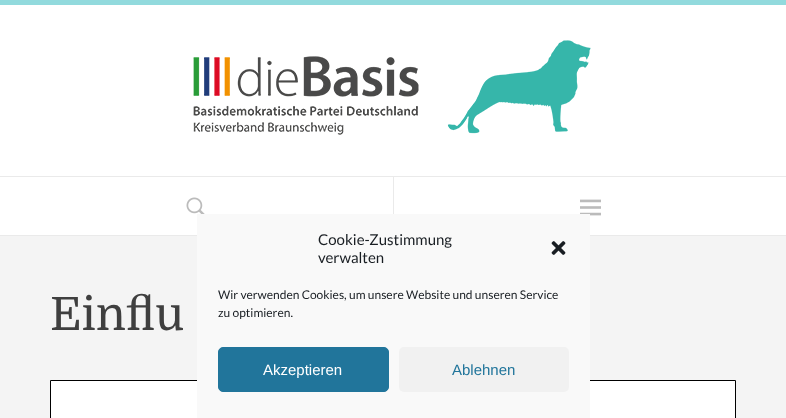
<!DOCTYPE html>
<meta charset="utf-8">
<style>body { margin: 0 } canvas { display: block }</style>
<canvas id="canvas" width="786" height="418"></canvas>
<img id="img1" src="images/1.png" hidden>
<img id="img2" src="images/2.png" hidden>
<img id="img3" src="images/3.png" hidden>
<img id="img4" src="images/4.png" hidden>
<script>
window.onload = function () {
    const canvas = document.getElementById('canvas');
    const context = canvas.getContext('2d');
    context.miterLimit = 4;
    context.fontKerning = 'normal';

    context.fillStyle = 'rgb(244, 244, 244)';
    context.fillRect(0, 0, 786, 418);
    context.fillStyle = 'rgb(255, 255, 255)';
    context.fillRect(0, 5, 786, 230);
    context.fillStyle = 'rgb(146, 218, 221)';
    context.fillRect(0, 0, 786, 5);
    context.drawImage(document.getElementById('img1'), 193, 40, 398, 95);
    context.fillStyle = 'rgb(234, 234, 234)';
    context.fillRect(0, 176, 786, 1);
    context.fillRect(0, 235, 197, 1);
    context.drawImage(document.getElementById('img2'), 186, 197, 19, 17);
    context.fillRect(590, 235, 196, 1);
    context.fillRect(393, 176, 1, 38);
    context.drawImage(document.getElementById('img3'), 580, 199, 21, 17);
    context.fillStyle = 'rgb(255, 255, 255)';
    context.beginPath();
    context.rect(50.5, 380.5, 685, 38);
    context.fill();
    context.strokeStyle = 'rgb(0, 0, 0)';
    context.stroke();
    context.fillStyle = 'rgb(249, 249, 249)';
    context.fillRect(197, 214, 393, 204);
    context.drawImage(document.getElementById('img4'), 551, 241, 15, 14);
    context.fillStyle = 'rgb(33, 117, 155)';
    context.beginPath();
    context.roundRect(218.5, 347.5, 170, 44, 4.5);
    context.fill();
    context.strokeStyle = 'rgb(33, 117, 155)';
    context.stroke();
    context.fillStyle = 'rgb(241, 241, 241)';
    context.beginPath();
    context.roundRect(399, 347, 170, 45, 5);
    context.fill();
    context.font = '46px Domine';
    context.fillStyle = 'rgb(63, 63, 63)';
    context.fillText('Einflu', 50, 330);
    context.font = '15px Lato';
    context.fillStyle = 'rgb(25, 30, 35)';
    context.fillText('Cookie-Zustimmung', 318, 245);
    context.fillText('verwalten', 318, 263);
    context.font = '12px Lato';
    context.fillText('Wir verwenden Cookies, um unsere Website und unseren Service', 218, 299);
    context.fillText('zu optimieren.', 218, 317);
    context.font = '15px Liberation Sans';
    context.fillStyle = 'rgb(255, 255, 255)';
    context.fillText('Akzeptieren', 263, 375);
    context.fillStyle = 'rgb(33, 117, 155)';
    context.fillText('Ablehnen', 452, 375);
};
</script>
